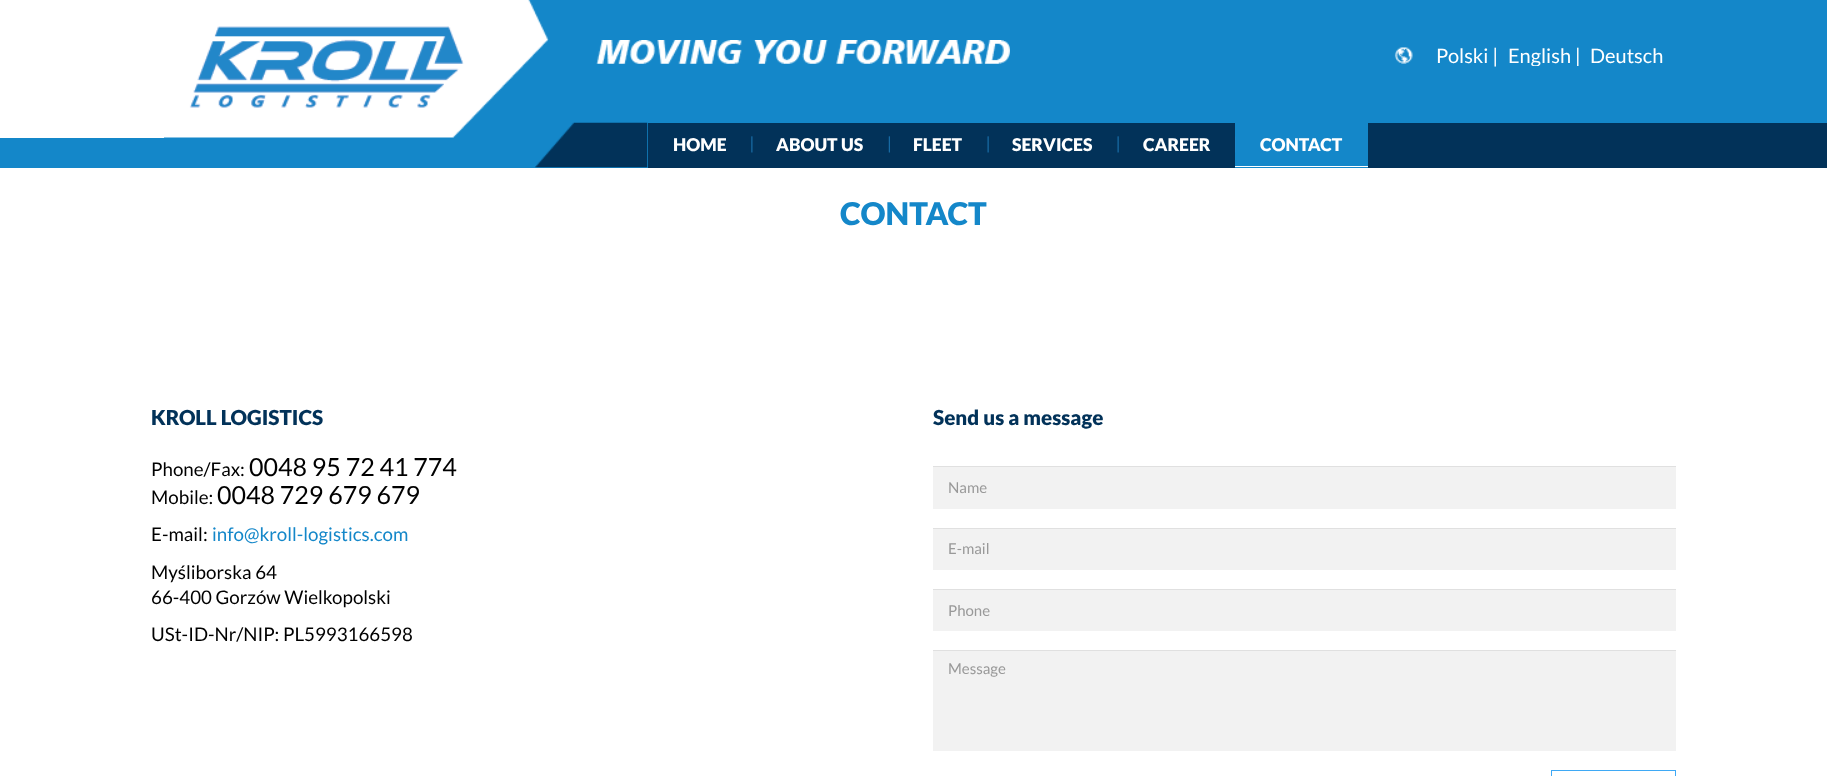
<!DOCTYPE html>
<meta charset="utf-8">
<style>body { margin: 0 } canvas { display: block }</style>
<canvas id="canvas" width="1827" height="776"></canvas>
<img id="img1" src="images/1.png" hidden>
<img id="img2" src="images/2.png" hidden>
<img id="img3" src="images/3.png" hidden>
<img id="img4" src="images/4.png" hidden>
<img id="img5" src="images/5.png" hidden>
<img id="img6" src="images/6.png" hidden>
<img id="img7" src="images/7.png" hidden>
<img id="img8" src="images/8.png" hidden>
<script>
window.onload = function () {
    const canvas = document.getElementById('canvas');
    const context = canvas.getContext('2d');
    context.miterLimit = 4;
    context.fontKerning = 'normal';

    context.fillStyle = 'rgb(255, 255, 255)';
    context.fillRect(0, 0, 1827, 776);
    context.fillStyle = 'rgb(20, 135, 201)';
    context.fillRect(0, 0, 1827, 160);
    context.fillStyle = 'rgb(255, 255, 255)';
    context.fillRect(0, 0, 164, 138);
    context.drawImage(document.getElementById('img1'), 164, 0, 385, 138);
    context.drawImage(document.getElementById('img2'), 596, 40, 414, 24);
    context.drawImage(document.getElementById('img3'), 1394, 47, 19, 17);
    context.fillStyle = 'rgb(20, 135, 201)';
    context.fillRect(0, 160, 648, 8);
    context.fillStyle = 'rgb(2, 50, 89)';
    context.fillRect(648, 123, 587, 45);
    context.drawImage(document.getElementById('img4'), 535, 122, 113, 46);
    context.drawImage(document.getElementById('img5'), 751, 136, 2, 17);
    context.drawImage(document.getElementById('img6'), 888, 136, 2, 17);
    context.drawImage(document.getElementById('img7'), 987, 136, 2, 17);
    context.drawImage(document.getElementById('img7'), 1117, 136, 2, 17);
    context.fillStyle = 'rgb(20, 135, 201)';
    context.fillRect(1235, 160, 133, 8);
    context.drawImage(document.getElementById('img8'), 1235, 136, 1, 17);
    context.fillStyle = 'rgb(255, 255, 255)';
    context.fillRect(1235, 166, 133, 1);
    context.fillStyle = 'rgb(2, 50, 89)';
    context.fillRect(1368, 123, 459, 45);
    context.fillStyle = 'rgb(242, 242, 242)';
    context.fillRect(933, 467, 743, 42);
    context.fillStyle = 'rgb(224, 224, 224)';
    context.fillRect(933, 466, 743, 1);
    context.fillStyle = 'rgb(242, 242, 242)';
    context.fillRect(933, 529, 743, 41);
    context.fillStyle = 'rgb(224, 224, 224)';
    context.fillRect(933, 528, 743, 1);
    context.fillStyle = 'rgb(242, 242, 242)';
    context.fillRect(933, 590, 743, 41);
    context.fillStyle = 'rgb(224, 224, 224)';
    context.fillRect(933, 589, 743, 1);
    context.fillStyle = 'rgb(242, 242, 242)';
    context.fillRect(933, 651, 743, 100);
    context.fillStyle = 'rgb(224, 224, 224)';
    context.fillRect(933, 650, 743, 1);
    context.strokeStyle = 'rgb(63, 169, 245)';
    context.strokeRect(1551.5, 770.5, 124, 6);
    context.font = '20px Lato';
    context.fillStyle = 'rgb(255, 255, 255)';
    context.fillText('Polski |', 1436, 63);
    context.save();
    context.beginPath();
    context.rect(1431, 44, 239, 22);
    context.clip();
    context.fillText('English |', 1508, 63);
    context.restore();
    context.fillText('Deutsch', 1590, 63);
    context.font = '900 17.5px Lato';
    context.fillText('HOME', 673, 151);
    context.fillText('ABOUT US', 776, 151);
    context.fillText('FLEET', 913, 151);
    context.fillText('SERVICES', 1012, 151);
    context.fillText('CAREER', 1143, 151);
    context.fillText('CONTACT', 1260, 151);
    context.font = '900 31.25px Lato';
    context.fillStyle = 'rgb(20, 135, 201)';
    context.fillText('CONTACT', 840, 225);
    context.font = '900 20.6px Lato';
    context.fillStyle = 'rgb(2, 50, 89)';
    context.fillText('KROLL LOGISTICS', 151, 425);
    context.font = '18.75px Lato';
    context.fillStyle = 'rgb(0, 0, 0)';
    context.fillText('Phone/Fax:', 151, 476);
    context.font = '25px Lato';
    context.fillText('0048 95 72 41 774', 249, 476);
    context.font = '18.75px Lato';
    context.fillText('Mobile:', 151, 504);
    context.font = '25px Lato';
    context.fillText('0048 729 679 679', 217, 504);
    context.font = '18.75px Lato';
    context.fillText('E-mail:', 151, 541);
    context.fillStyle = 'rgb(20, 135, 201)';
    context.fillText('info@kroll-logistics.com', 212, 541);
    context.fillStyle = 'rgb(0, 0, 0)';
    context.fillText('Myśliborska 64', 151, 579);
    context.fillText('66-400 Gorzów Wielkopolski', 151, 604);
    context.fillText('USt-ID-Nr/NIP: PL5993166598', 151, 641);
    context.font = '900 20.6px Lato';
    context.fillStyle = 'rgb(2, 50, 89)';
    context.fillText('Send us a message', 933, 425);
    context.font = '15px Lato';
    context.fillStyle = 'rgb(153, 153, 153)';
    context.fillText('Name', 948, 493);
    context.fillText('E-mail', 948, 554);
    context.fillText('Phone', 948, 616);
    context.fillText('Message', 948, 674);
};
</script>
